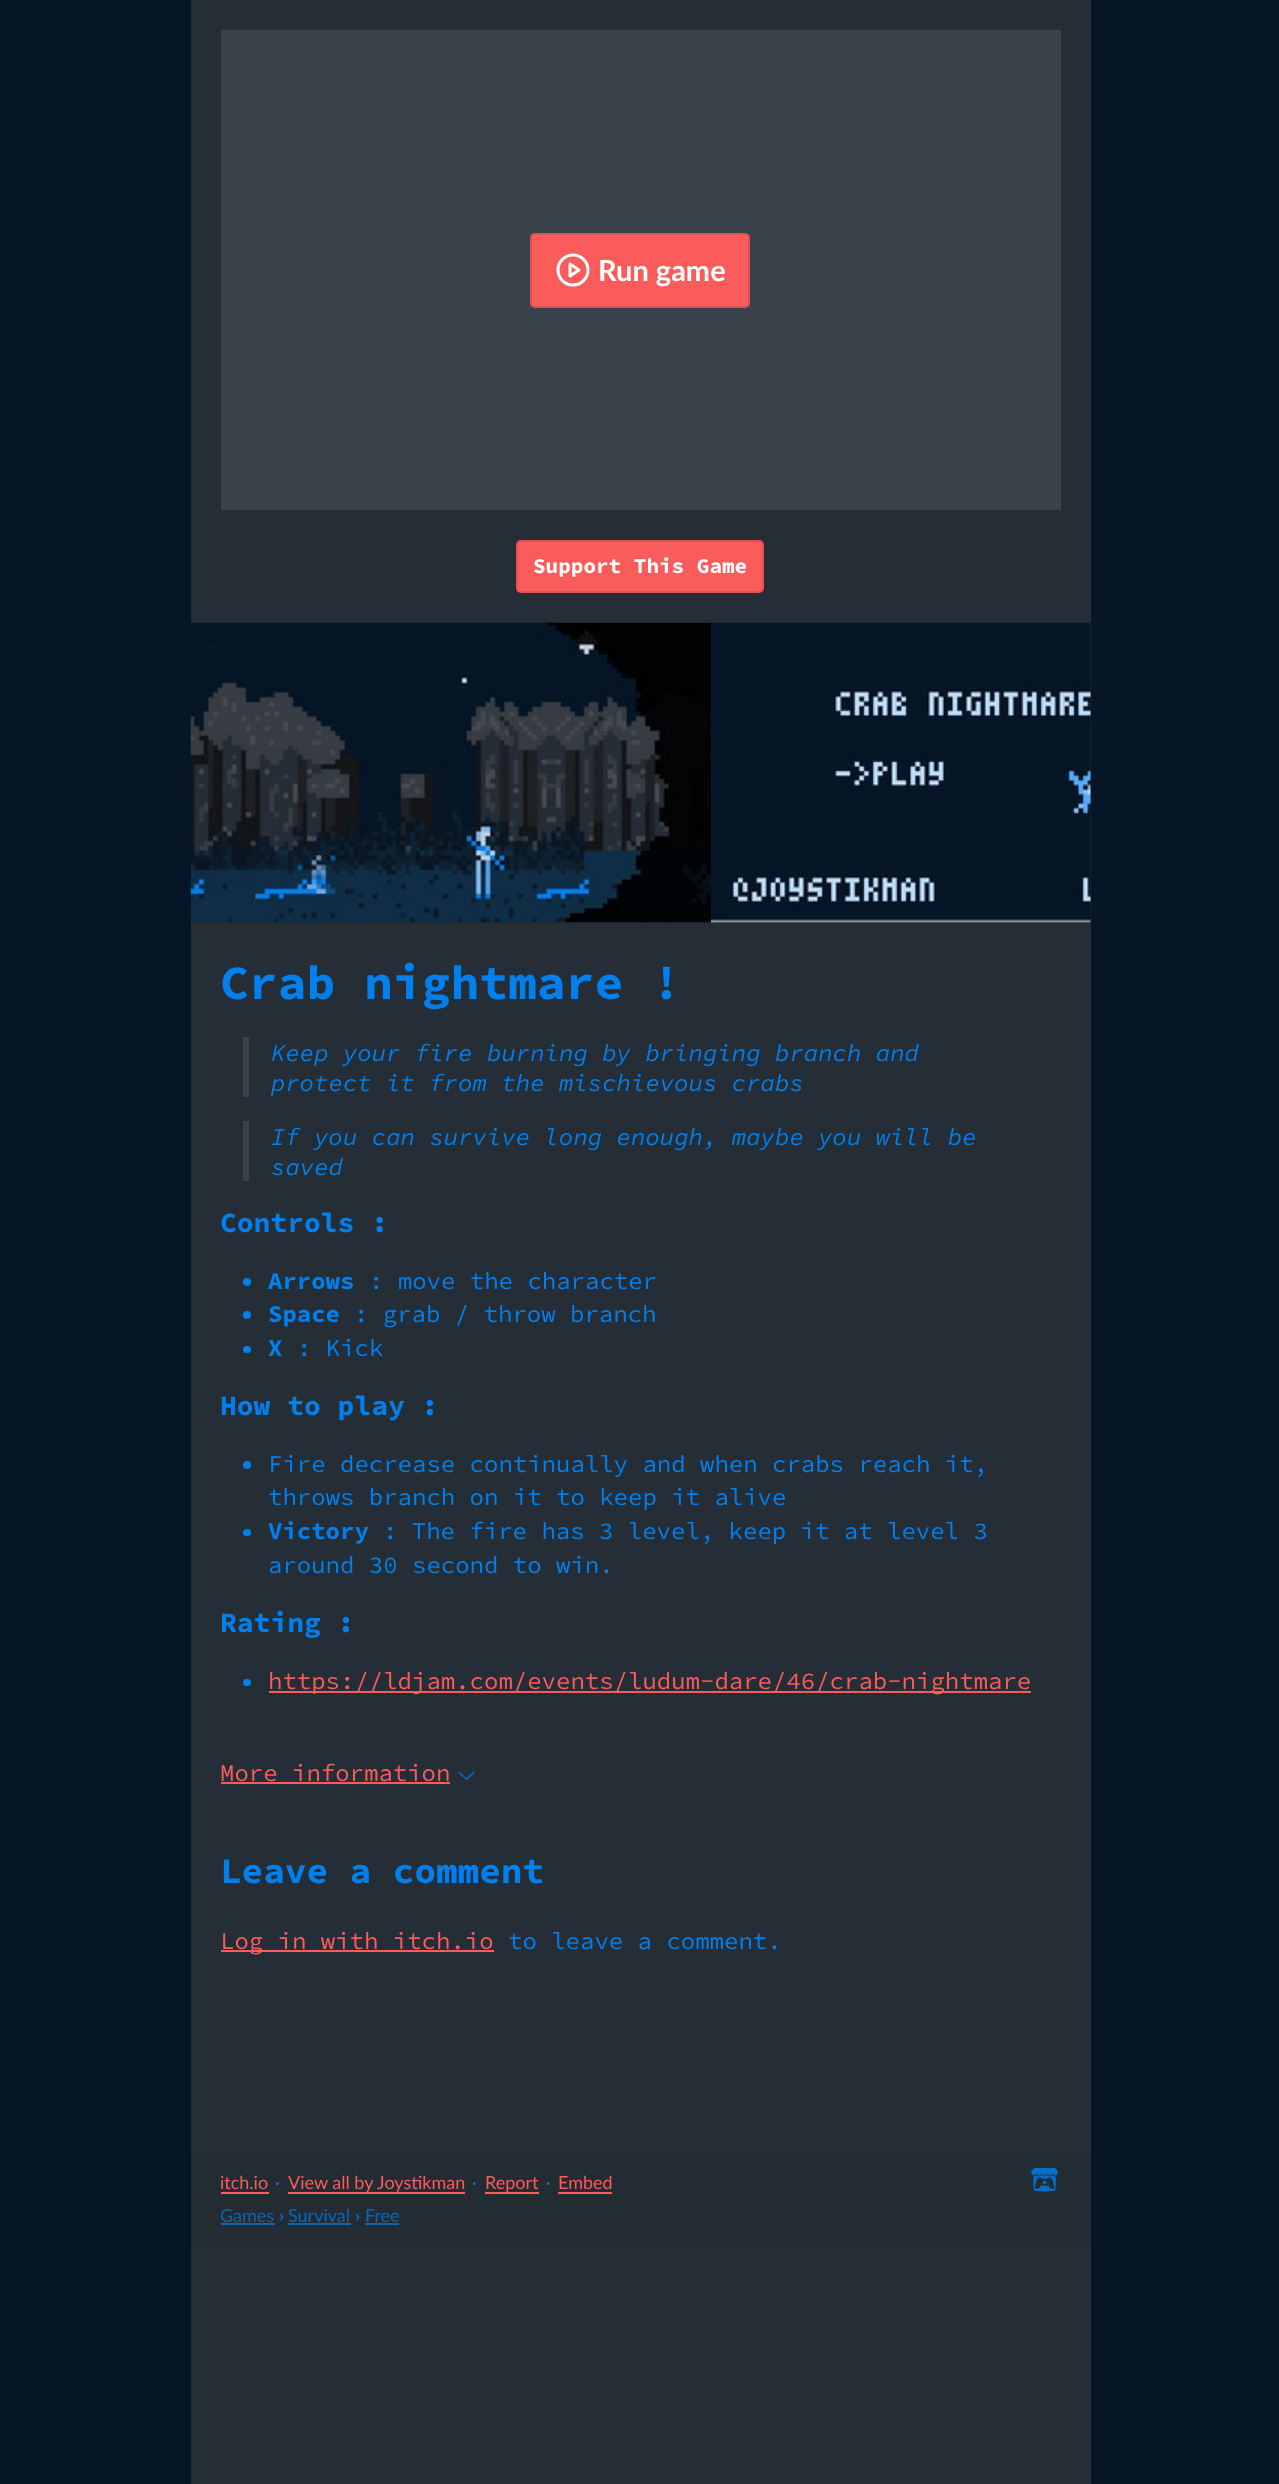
<!DOCTYPE html>
<meta charset="utf-8">
<style>body { margin: 0 } canvas { display: block }</style>
<canvas id="canvas" width="1279" height="2484"></canvas>
<img id="img1" src="images/1.png" hidden>
<img id="img2" src="images/2.png" hidden>
<img id="img3" src="images/3.png" hidden>
<img id="img4" src="images/4.png" hidden>
<script>
window.onload = function () {
    const canvas = document.getElementById('canvas');
    const context = canvas.getContext('2d');
    context.miterLimit = 4;
    context.fontKerning = 'normal';

    context.fillStyle = 'rgb(6, 22, 38)';
    context.fillRect(0, 0, 1279, 2484);
    context.fillStyle = 'rgb(37, 45, 54)';
    context.fillRect(191, 0, 900, 2484);
    context.fillStyle = 'rgb(58, 66, 75)';
    context.fillRect(221, 30, 840, 480);
    context.fillStyle = 'rgb(250, 92, 92)';
    context.beginPath();
    context.roundRect(530, 233, 220, 75, 5);
    context.fill();
    context.beginPath();
    context.roundRect(531, 234, 218, 73, 4);
    context.strokeStyle = 'rgba(0, 0, 0, 0.1)';
    context.lineWidth = 2;
    context.stroke();
    context.beginPath();
    context.arc(573, 270, 15, 0, 2 * Math.PI);
    context.strokeStyle = 'rgb(255, 255, 255)';
    context.lineWidth = 3;
    context.stroke();
    context.beginPath();
    context.moveTo(570, 264);
    context.lineTo(579, 270);
    context.lineTo(570, 276);
    context.closePath();
    context.lineCap = 'round';
    context.lineJoin = 'round';
    context.stroke();
    context.beginPath();
    context.roundRect(516, 540, 248, 53, 5);
    context.fill();
    context.beginPath();
    context.roundRect(517, 541, 246, 51, 4);
    context.strokeStyle = 'rgba(0, 0, 0, 0.1)';
    context.lineWidth = 2;
    context.lineJoin = 'miter';
    context.stroke();
    context.drawImage(document.getElementById('img1'), 190, 622, 521, 301);
    context.drawImage(document.getElementById('img2'), 711, 622, 380, 301);
    context.fillStyle = 'rgb(58, 66, 75)';
    context.fillRect(243, 1037, 6, 60);
    context.fillRect(243, 1121, 6, 60);
    context.fillStyle = 'rgb(1, 128, 237)';
    context.beginPath();
    context.arc(247, 1282, 4, 0, 2 * Math.PI);
    context.fill();
    context.beginPath();
    context.arc(247, 1315, 4, 0, 2 * Math.PI);
    context.fill();
    context.beginPath();
    context.roundRect(243, 1346, 8, 7, 3.5);
    context.fill();
    context.beginPath();
    context.arc(247, 1465, 4, 0, 2 * Math.PI);
    context.fill();
    context.beginPath();
    context.roundRect(243, 1529, 8, 7, 3.5);
    context.fill();
    context.beginPath();
    context.roundRect(243, 1679, 8, 7, 3.5);
    context.fill();
    context.fillStyle = 'rgb(250, 92, 92)';
    context.fillRect(269, 1691, 762, 2);
    context.fillRect(221, 1782, 229, 2);
    context.drawImage(document.getElementById('img3'), 458, 1772, 17, 9);
    context.fillRect(221, 1950, 273, 2);
    context.fillStyle = 'rgb(35, 43, 51)';
    context.fillRect(191, 2153, 900, 94);
    context.fillStyle = 'rgb(250, 92, 92)';
    context.fillRect(221, 2192, 48, 2);
    context.fillRect(288, 2192, 177, 2);
    context.fillRect(485, 2192, 54, 2);
    context.fillRect(558, 2192, 54, 2);
    context.drawImage(document.getElementById('img4'), 1031, 2168, 27, 24);
    context.fillStyle = 'rgb(11, 103, 181)';
    context.fillRect(221, 2223, 54, 2);
    context.fillRect(288, 2223, 63, 2);
    context.fillRect(365, 2223, 34, 2);
    context.font = 'bold 29px Lato';
    context.fillStyle = 'rgb(255, 255, 255)';
    context.fillText('Run game', 598, 281);
    context.font = 'bold 21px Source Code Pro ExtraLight';
    context.fillText('Support This Game', 533, 573);
    context.font = 'bold 48px Source Code Pro ExtraLight';
    context.fillStyle = 'rgb(1, 128, 237)';
    context.fillText('Crab nightmare !', 220, 999);
    context.font = 'italic 24px Source Code Pro ExtraLight';
    context.fillText('Keep your fire burning by bringing branch and', 271, 1061);
    context.fillText('protect it from the mischievous crabs', 271, 1091);
    context.fillText('If you can survive long enough, maybe you will be', 271, 1145);
    context.fillText('saved', 271, 1175);
    context.font = 'bold 28px Source Code Pro ExtraLight';
    context.fillText('Controls :', 220, 1232);
    context.font = 'bold 24px Source Code Pro ExtraLight';
    context.fillText('Arrows', 268, 1289);
    context.font = '24px Source Code Pro ExtraLight';
    context.fillText(': move the character', 369, 1289);
    context.font = 'bold 24px Source Code Pro ExtraLight';
    context.fillText('Space', 268, 1322);
    context.font = '24px Source Code Pro ExtraLight';
    context.fillText(': grab / throw branch', 354, 1322);
    context.font = 'bold 24px Source Code Pro ExtraLight';
    context.fillText('X', 268, 1356);
    context.font = '24px Source Code Pro ExtraLight';
    context.fillText(': Kick', 297, 1356);
    context.font = 'bold 28px Source Code Pro ExtraLight';
    context.fillText('How to play :', 220, 1415);
    context.font = '24px Source Code Pro ExtraLight';
    context.fillText('Fire decrease continually and when crabs reach it,', 268, 1472);
    context.fillText('throws branch on it to keep it alive', 268, 1505);
    context.font = 'bold 24px Source Code Pro ExtraLight';
    context.fillText('Victory', 268, 1539);
    context.font = '24px Source Code Pro ExtraLight';
    context.fillText(': The fire has 3 level, keep it at level 3', 383, 1539);
    context.fillText('around 30 second to win.', 268, 1573);
    context.font = 'bold 28px Source Code Pro ExtraLight';
    context.fillText('Rating :', 220, 1632);
    context.font = '24px Source Code Pro ExtraLight';
    context.fillStyle = 'rgb(250, 92, 92)';
    context.fillText('https://ldjam.com/events/ludum-dare/46/crab-nightmare', 268, 1689);
    context.fillText('More information', 220, 1781);
    context.font = 'bold 36px Source Code Pro ExtraLight';
    context.fillStyle = 'rgb(1, 128, 237)';
    context.fillText('Leave a comment', 220, 1883);
    context.font = '24px Source Code Pro ExtraLight';
    context.fillStyle = 'rgb(250, 92, 92)';
    context.fillText('Log in with itch.io', 220, 1949);
    context.fillStyle = 'rgb(1, 128, 237)';
    context.fillText('to leave a comment.', 508, 1949);
    context.font = '18px Lato';
    context.fillStyle = 'rgb(250, 92, 92)';
    context.fillText('itch.io', 220, 2189);
    context.fillStyle = 'rgb(1, 128, 237)';
    context.fillText('·', 275, 2189);
    context.fillStyle = 'rgb(250, 92, 92)';
    context.fillText('View all by Joystikman', 288, 2189);
    context.fillStyle = 'rgb(1, 128, 237)';
    context.fillText('·', 472, 2189);
    context.fillStyle = 'rgb(250, 92, 92)';
    context.fillText('Report', 485, 2189);
    context.fillStyle = 'rgb(1, 128, 237)';
    context.fillText('·', 546, 2189);
    context.fillStyle = 'rgb(250, 92, 92)';
    context.fillText('Embed', 558, 2189);
    context.save();
    context.beginPath();
    context.rect(221, 2199, 840, 33);
    context.clip();
    context.fillStyle = 'rgb(11, 103, 181)';
    context.fillText('Games', 220, 2222);
    context.restore();
    context.fillStyle = 'rgb(1, 128, 237)';
    context.fillText('›', 279, 2222);
    context.fillStyle = 'rgb(11, 103, 181)';
    context.fillText('Survival', 288, 2222);
    context.fillStyle = 'rgb(1, 128, 237)';
    context.fillText('›', 355, 2222);
    context.fillStyle = 'rgb(11, 103, 181)';
    context.fillText('Free', 365, 2222);
};
</script>
